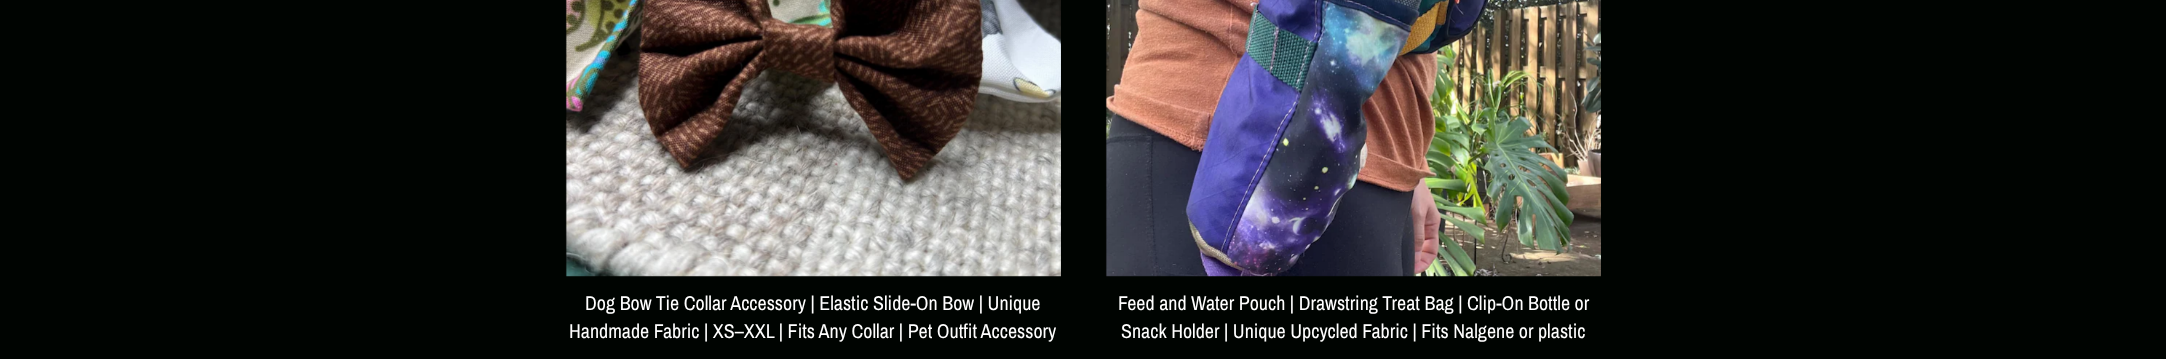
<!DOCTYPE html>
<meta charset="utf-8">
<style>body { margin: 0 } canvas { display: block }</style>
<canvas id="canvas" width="2166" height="359"></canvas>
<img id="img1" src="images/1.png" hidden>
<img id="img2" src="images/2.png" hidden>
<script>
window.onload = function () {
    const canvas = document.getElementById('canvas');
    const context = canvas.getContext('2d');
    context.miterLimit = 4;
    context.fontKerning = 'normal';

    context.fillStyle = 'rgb(0, 4, 1)';
    context.fillRect(0, 0, 2166, 359);
    context.drawImage(document.getElementById('img1'), 565, 0, 496, 277);
    context.drawImage(document.getElementById('img2'), 1105, 0, 496, 277);
    context.font = '20px Archivo Narrow';
    context.fillStyle = 'rgb(255, 255, 255)';
    context.fillText('Dog Bow Tie Collar Accessory | Elastic Slide-On Bow | Unique', 585, 310);
    context.fillText('Handmade Fabric | XS–XXL | Fits Any Collar | Pet Outfit Accessory', 569, 338);
    context.fillText('Feed and Water Pouch | Drawstring Treat Bag | Clip-On Bottle or', 1118, 310);
    context.fillText('Snack Holder | Unique Upcycled Fabric | Fits Nalgene or plastic', 1121, 338);
};
</script>
